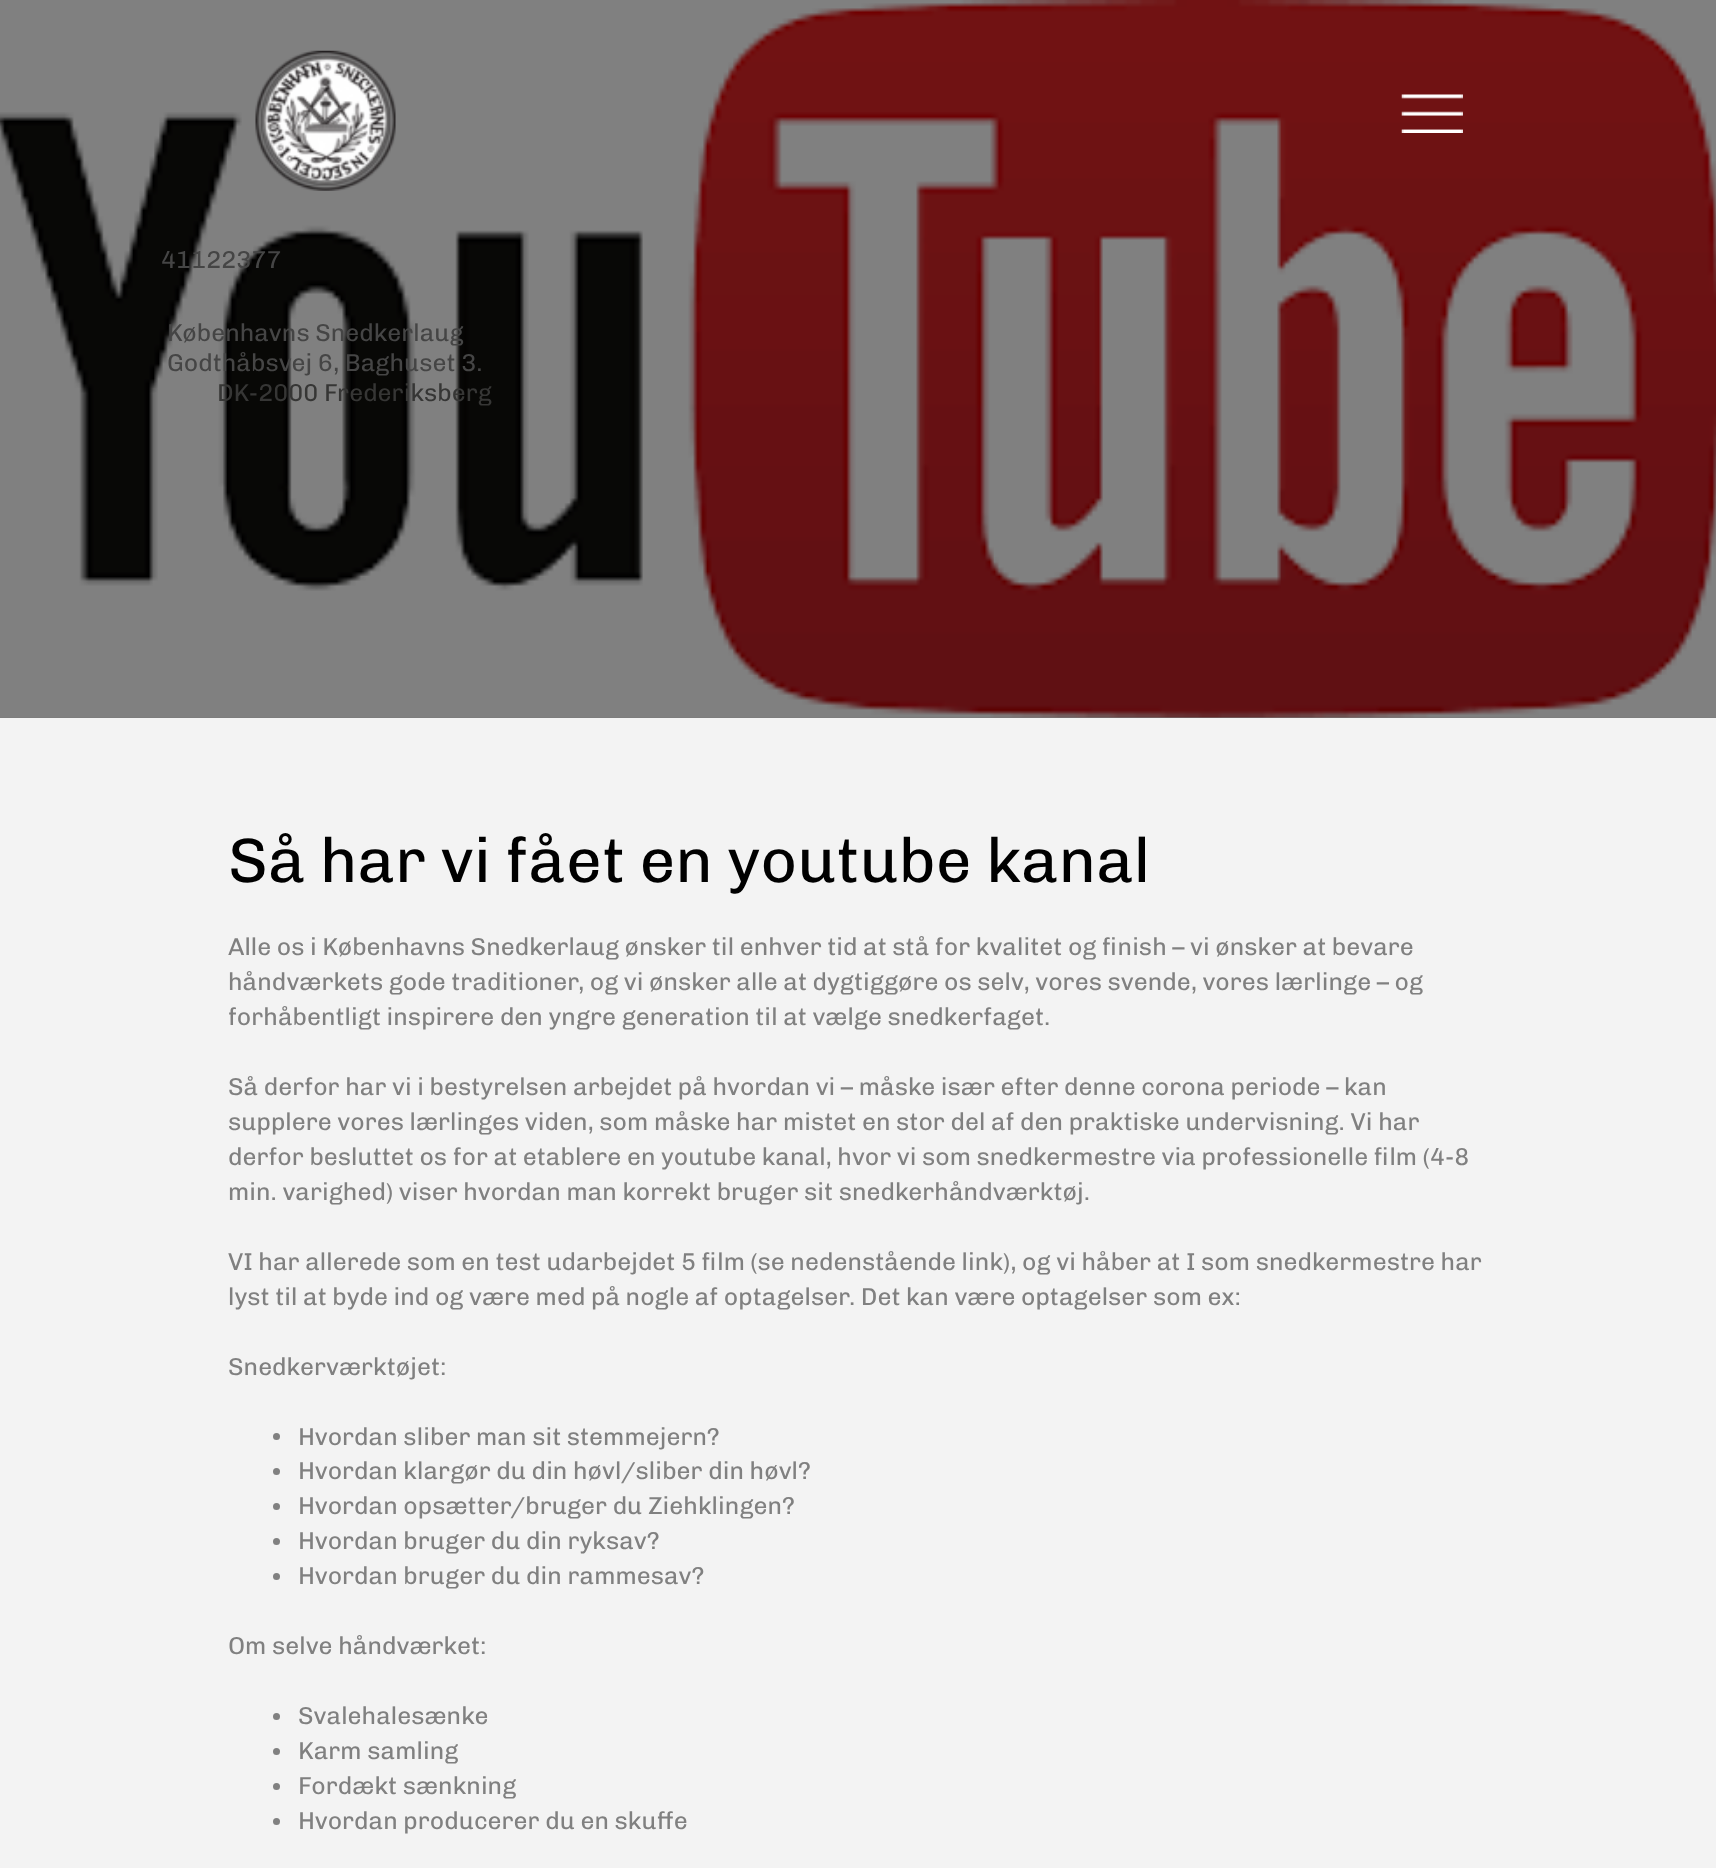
<!DOCTYPE html>
<meta charset="utf-8">
<style>body { margin: 0 } canvas { display: block }</style>
<canvas id="canvas" width="1716" height="1868"></canvas>
<img id="img1" src="images/1.png" hidden>
<img id="img2" src="images/2.png" hidden>
<img id="img3" src="images/3.png" hidden>
<script>
window.onload = function () {
    const canvas = document.getElementById('canvas');
    const context = canvas.getContext('2d');
    context.miterLimit = 4;
    context.fontKerning = 'normal';

    context.fillStyle = 'rgb(243, 243, 243)';
    context.fillRect(0, 0, 1716, 1868);
    context.fillStyle = 'rgb(122, 122, 122)';
    context.fillRect(0, 717, 1716, 1);
    context.drawImage(document.getElementById('img1'), 0, 0, 1716, 718);
    context.drawImage(document.getElementById('img2'), 255, 50, 141, 141);
    context.drawImage(document.getElementById('img3'), 1401, 94, 62, 39);
    context.fillStyle = 'rgb(128, 128, 128)';
    context.beginPath();
    context.arc(276.5, 1436.5, 3.5, 0, 2 * Math.PI);
    context.fill();
    context.beginPath();
    context.arc(276.5, 1471.5, 3.5, 0, 2 * Math.PI);
    context.fill();
    context.beginPath();
    context.arc(276.5, 1506.5, 3.5, 0, 2 * Math.PI);
    context.fill();
    context.beginPath();
    context.arc(276.5, 1541.5, 3.5, 0, 2 * Math.PI);
    context.fill();
    context.beginPath();
    context.arc(276.5, 1576.5, 3.5, 0, 2 * Math.PI);
    context.fill();
    context.beginPath();
    context.arc(276.5, 1716.5, 3.5, 0, 2 * Math.PI);
    context.fill();
    context.beginPath();
    context.arc(276.5, 1751.5, 3.5, 0, 2 * Math.PI);
    context.fill();
    context.beginPath();
    context.arc(276.5, 1786.5, 3.5, 0, 2 * Math.PI);
    context.fill();
    context.beginPath();
    context.arc(276.5, 1821.5, 3.5, 0, 2 * Math.PI);
    context.fill();
    context.font = '24.5px Chivo';
    context.fillStyle = 'rgb(69, 69, 69)';
    context.fillText('41122377', 161, 268);
    context.fillText('Københavns Snedkerlaug', 167, 341);
    context.fillText('Godthåbsvej 6, Baghuset 3.', 167, 371);
    context.fillStyle = 'rgb(54, 54, 53)';
    context.fillText('DK-2000 Frederiksberg', 217, 401);
    context.font = '63px Chivo';
    context.fillStyle = 'rgb(0, 0, 0)';
    context.fillText('Så har vi fået en youtube kanal', 228, 882);
    context.font = '24.5px Chivo';
    context.fillStyle = 'rgb(128, 128, 128)';
    context.fillText('Alle os i Københavns Snedkerlaug ønsker til enhver tid at stå for kvalitet og finish – vi ønsker at bevare', 228, 955);
    context.fillText('håndværkets gode traditioner, og vi ønsker alle at dygtiggøre os selv, vores svende, vores lærlinge – og', 228, 990);
    context.fillText('forhåbentligt inspirere den yngre generation til at vælge snedkerfaget.', 228, 1025);
    context.fillText('Så derfor har vi i bestyrelsen arbejdet på hvordan vi – måske især efter denne corona periode – kan', 228, 1095);
    context.fillText('supplere vores lærlinges viden, som måske har mistet en stor del af den praktiske undervisning. Vi har', 228, 1130);
    context.fillText('derfor besluttet os for at etablere en youtube kanal, hvor vi som snedkermestre via professionelle film (4-8', 228, 1165);
    context.fillText('min. varighed) viser hvordan man korrekt bruger sit snedkerhåndværktøj.', 228, 1200);
    context.fillText('VI har allerede som en test udarbejdet 5 film (se nedenstående link), og vi håber at I som snedkermestre har', 228, 1270);
    context.fillText('lyst til at byde ind og være med på nogle af optagelser. Det kan være optagelser som ex:', 228, 1305);
    context.fillText('Snedkerværktøjet:', 228, 1375);
    context.fillText('Hvordan sliber man sit stemmejern?', 298, 1445);
    context.fillText('Hvordan klargør du din høvl/sliber din høvl?', 298, 1479);
    context.fillText('Hvordan opsætter/bruger du Ziehklingen?', 298, 1514);
    context.fillText('Hvordan bruger du din ryksav?', 298, 1549);
    context.fillText('Hvordan bruger du din rammesav?', 298, 1584);
    context.fillText('Om selve håndværket:', 228, 1654);
    context.fillText('Svalehalesænke', 298, 1724);
    context.fillText('Karm samling', 298, 1759);
    context.fillText('Fordækt sænkning', 298, 1794);
    context.fillText('Hvordan producerer du en skuffe', 298, 1829);
};
</script>
